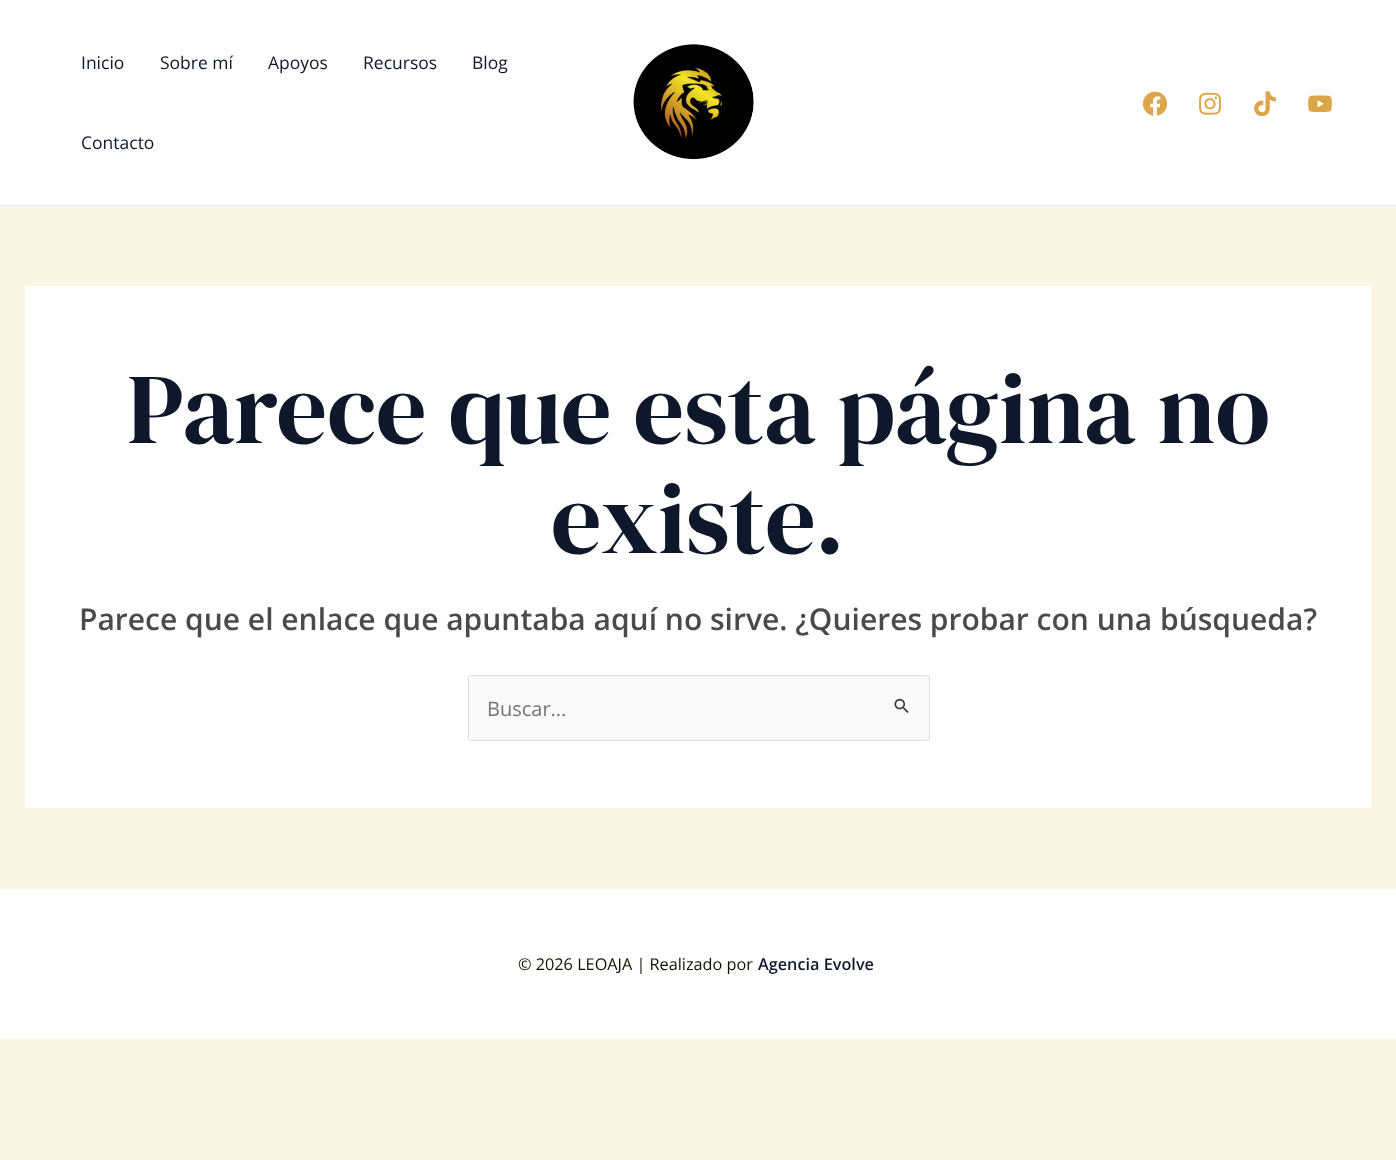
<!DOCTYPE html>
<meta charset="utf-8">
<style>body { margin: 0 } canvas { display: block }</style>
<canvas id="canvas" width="1396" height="1160"></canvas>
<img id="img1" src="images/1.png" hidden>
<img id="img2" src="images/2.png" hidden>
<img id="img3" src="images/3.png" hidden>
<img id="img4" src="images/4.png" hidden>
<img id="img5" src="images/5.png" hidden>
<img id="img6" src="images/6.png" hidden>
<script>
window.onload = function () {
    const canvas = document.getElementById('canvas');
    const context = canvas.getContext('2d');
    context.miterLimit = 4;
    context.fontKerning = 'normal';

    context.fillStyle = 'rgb(250, 245, 229)';
    context.fillRect(0, 0, 1396, 1160);
    context.fillStyle = 'rgb(255, 255, 255)';
    context.fillRect(0, 0, 1396, 205);
    context.fillStyle = 'rgb(234, 234, 234)';
    context.fillRect(0, 205, 1396, 1);
    context.drawImage(document.getElementById('img1'), 633, 44, 121, 116);
    context.drawImage(document.getElementById('img2'), 1143, 91, 25, 25);
    context.drawImage(document.getElementById('img3'), 1199, 92, 22, 23);
    context.drawImage(document.getElementById('img4'), 1254, 91, 22, 25);
    context.drawImage(document.getElementById('img5'), 1308, 95, 24, 18);
    context.fillStyle = 'rgb(255, 255, 255)';
    context.fillRect(25, 286, 1346, 522);
    context.fillStyle = 'rgb(250, 250, 250)';
    context.beginPath();
    context.roundRect(468.5, 675.5, 461, 65, 2);
    context.fill();
    context.strokeStyle = 'rgb(221, 221, 221)';
    context.stroke();
    context.drawImage(document.getElementById('img6'), 894, 698, 15, 15);
    context.fillStyle = 'rgb(255, 255, 255)';
    context.fillRect(0, 889, 1396, 150);
    context.font = '17.5px Open Sans';
    context.fillStyle = 'rgb(15, 23, 42)';
    context.fillText('Inicio', 81, 69);
    context.fillText('Sobre mí', 160, 69);
    context.fillText('Apoyos', 268, 69);
    context.fillText('Recursos', 363, 69);
    context.fillText('Blog', 472, 69);
    context.fillText('Contacto', 81, 149);
    context.font = '100px DM Serif Display';
    context.fillText('Parece que esta página no', 127, 443);
    context.fillText('existe.', 551, 553);
    context.font = '600 30px Open Sans';
    context.fillStyle = 'rgb(74, 74, 74)';
    context.fillText('Parece que el enlace que apuntaba aquí no sirve. ¿Quieres probar con una búsqueda?', 79, 630);
    context.font = '20px Open Sans';
    context.fillStyle = 'rgb(117, 117, 117)';
    context.fillText('Buscar...', 487, 716);
    context.font = '16.25px Open Sans';
    context.fillStyle = 'rgb(20, 16, 4)';
    context.fillText('© 2026 LEOAJA | Realizado por', 518, 970);
    context.font = '600 16.25px Open Sans';
    context.fillStyle = 'rgb(15, 23, 42)';
    context.fillText('Agencia Evolve', 758, 970);
};
</script>
